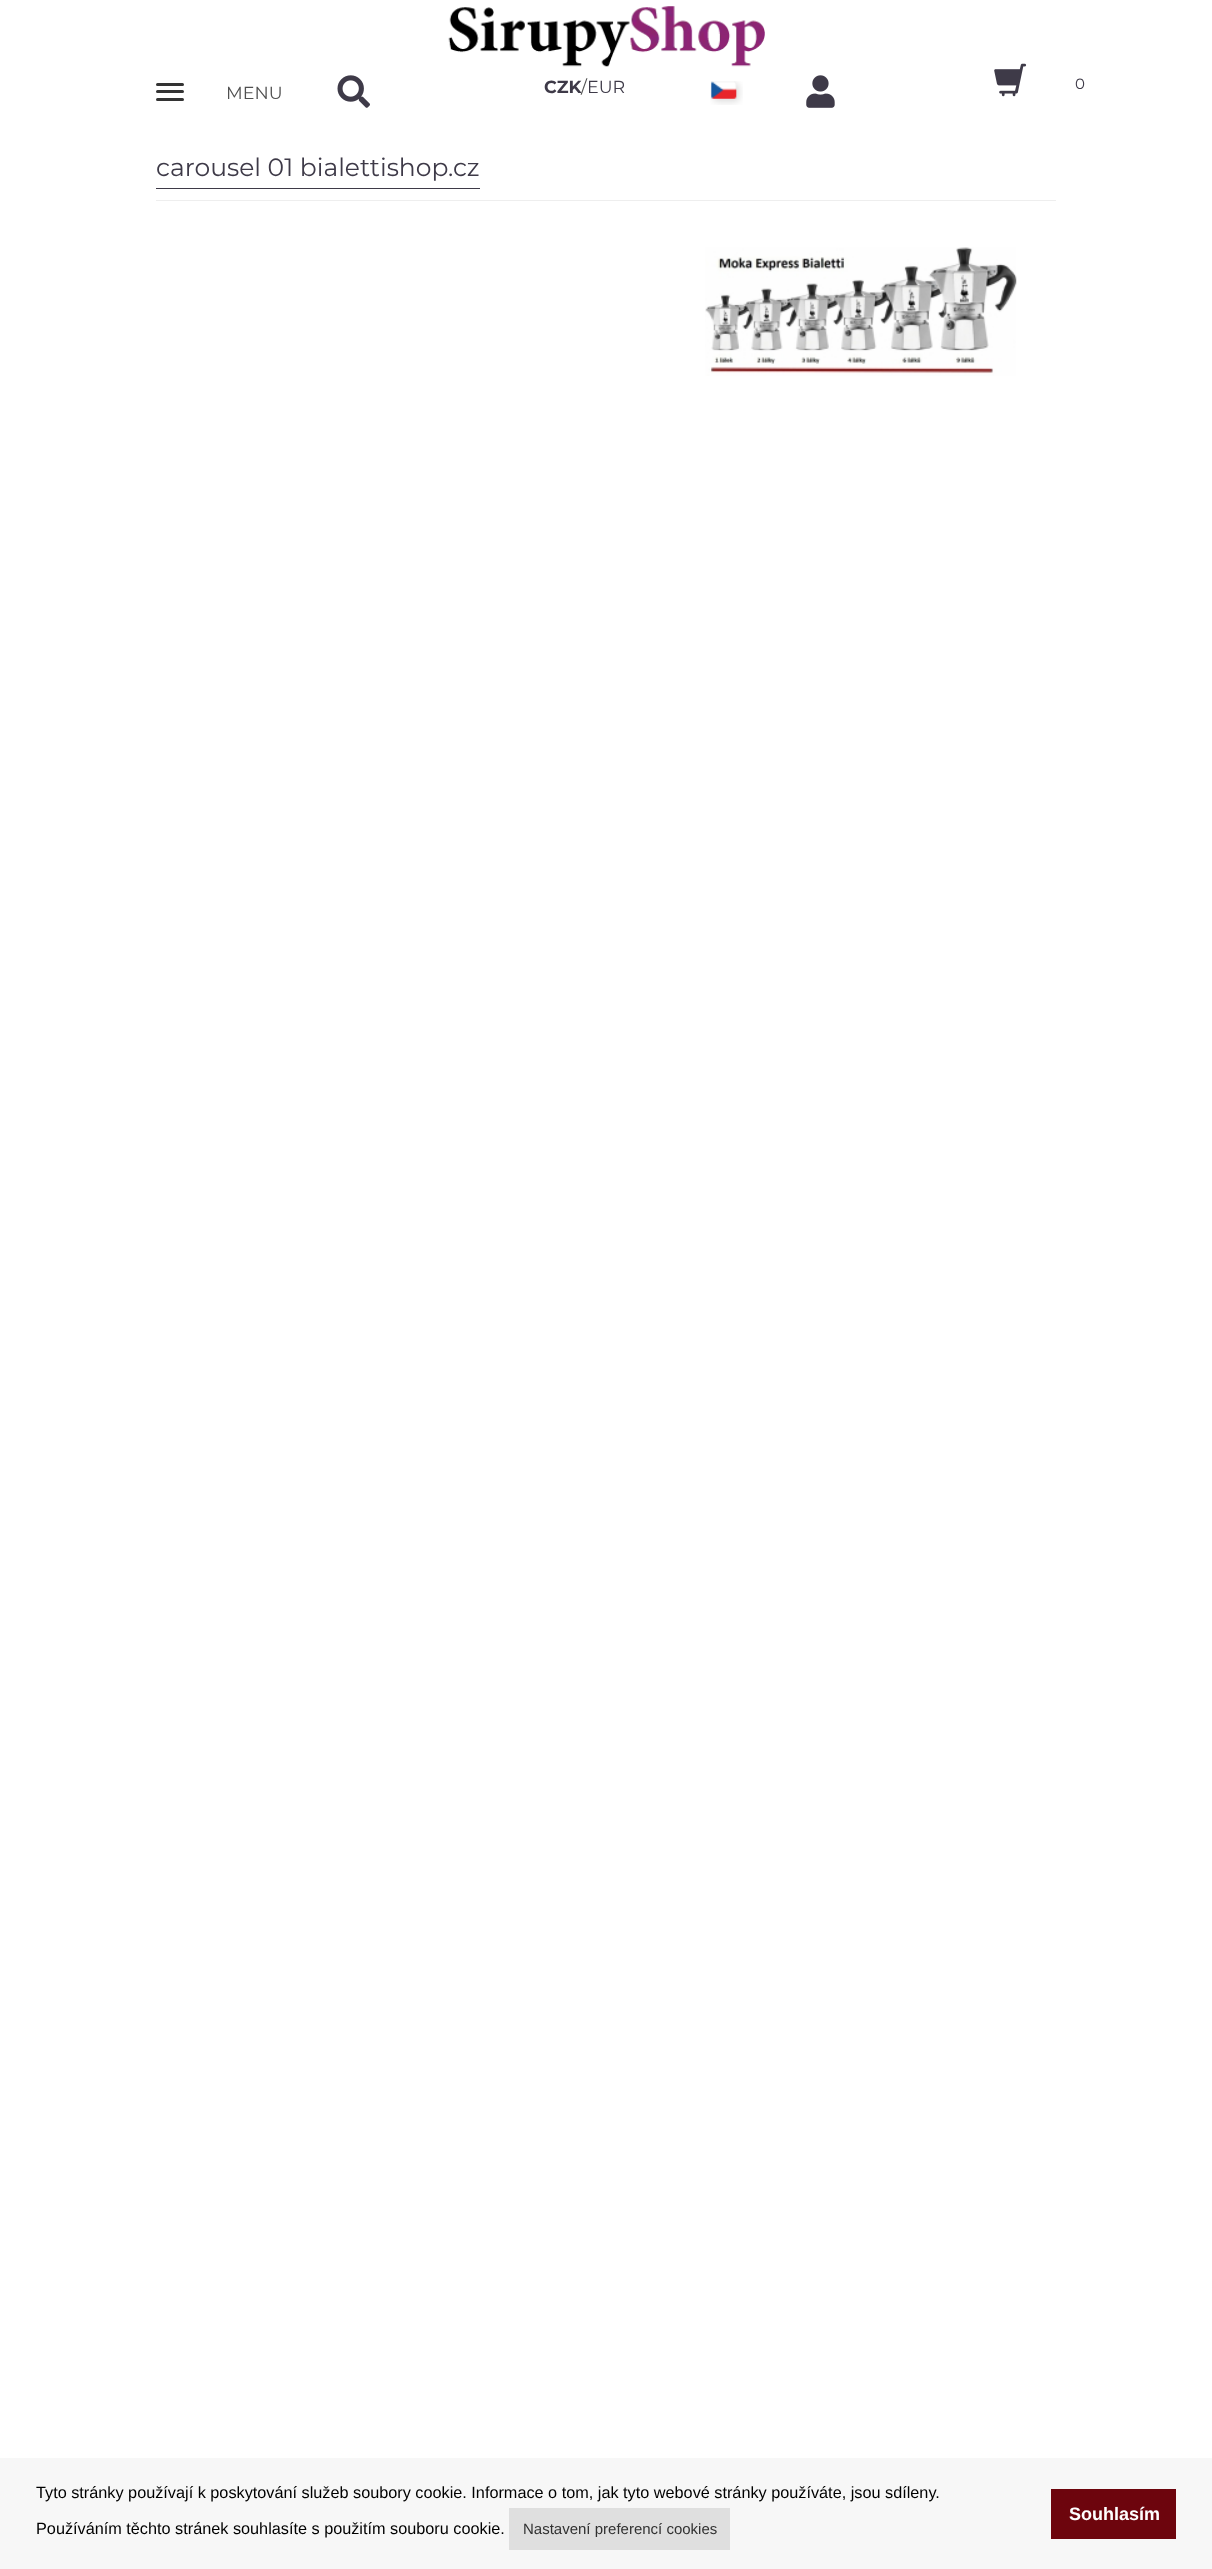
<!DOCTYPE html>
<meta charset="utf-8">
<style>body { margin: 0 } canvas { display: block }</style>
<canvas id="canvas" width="1212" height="2569"></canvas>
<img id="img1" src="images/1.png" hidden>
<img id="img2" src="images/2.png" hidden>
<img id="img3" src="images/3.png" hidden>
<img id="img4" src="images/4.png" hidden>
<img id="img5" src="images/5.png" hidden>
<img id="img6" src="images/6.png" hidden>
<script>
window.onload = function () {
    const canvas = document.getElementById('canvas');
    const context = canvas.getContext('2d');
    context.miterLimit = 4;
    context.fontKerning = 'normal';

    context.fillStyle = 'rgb(255, 255, 255)';
    context.fillRect(0, 0, 1212, 2569);
    context.drawImage(document.getElementById('img1'), 448, 6, 317, 61);
    context.fillStyle = 'rgb(51, 51, 51)';
    context.beginPath();
    context.roundRect(156, 83, 28, 3, 1.5);
    context.fill();
    context.beginPath();
    context.roundRect(156, 90, 28, 3, 1.5);
    context.fill();
    context.beginPath();
    context.roundRect(156, 98, 28, 3, 1.5);
    context.fill();
    context.drawImage(document.getElementById('img2'), 337, 75, 33, 33);
    context.drawImage(document.getElementById('img3'), 710, 81, 33, 24);
    context.drawImage(document.getElementById('img4'), 806, 75, 29, 33);
    context.drawImage(document.getElementById('img5'), 994, 63, 33, 34);
    context.fillStyle = 'rgb(238, 238, 238)';
    context.fillRect(156, 200, 900, 1);
    context.fillStyle = 'rgb(62, 58, 72)';
    context.fillRect(156, 188, 324, 1);
    context.drawImage(document.getElementById('img6'), 705, 247, 312, 129);
    context.fillStyle = 'rgb(247, 247, 247)';
    context.fillRect(0, 2458, 1212, 111);
    context.fillStyle = 'rgb(223, 223, 223)';
    context.fillRect(509, 2508, 221, 42);
    context.fillStyle = 'rgb(109, 5, 13)';
    context.fillRect(1051, 2489, 125, 50);
    context.font = '17.5px Montserrat';
    context.fillStyle = 'rgb(80, 80, 80)';
    context.fillText('MENU', 226, 99);
    context.font = 'bold 17.5px Montserrat';
    context.fillStyle = 'rgb(62, 58, 72)';
    context.fillText('CZK', 544, 93);
    context.font = '17.5px Montserrat';
    context.fillStyle = 'rgb(80, 80, 80)';
    context.fillText('/', 581, 93);
    context.fillStyle = 'rgb(62, 58, 72)';
    context.fillText('EUR', 587, 93);
    context.font = '15px Montserrat';
    context.fillText('0', 1075, 89);
    context.font = '25px Montserrat';
    context.fillText('carousel 01 bialettishop.cz', 156, 176);
    context.font = '16.25px Liberation Sans';
    context.fillStyle = 'rgb(0, 0, 0)';
    context.fillText('Tyto stránky používají k poskytování služeb soubory cookie. Informace o tom, jak tyto webové stránky používáte, jsou sdíleny.', 36, 2498);
    context.fillText('Používáním těchto stránek souhlasíte s použitím souboru cookie.', 36, 2534);
    context.font = '15px Liberation Sans';
    context.fillStyle = 'rgb(49, 49, 49)';
    context.fillText('Nastavení preferencí cookies', 523, 2534);
    context.font = 'bold 18px Liberation Sans';
    context.fillStyle = 'rgb(255, 255, 255)';
    context.fillText('Souhlasím', 1069, 2520);
};
</script>
